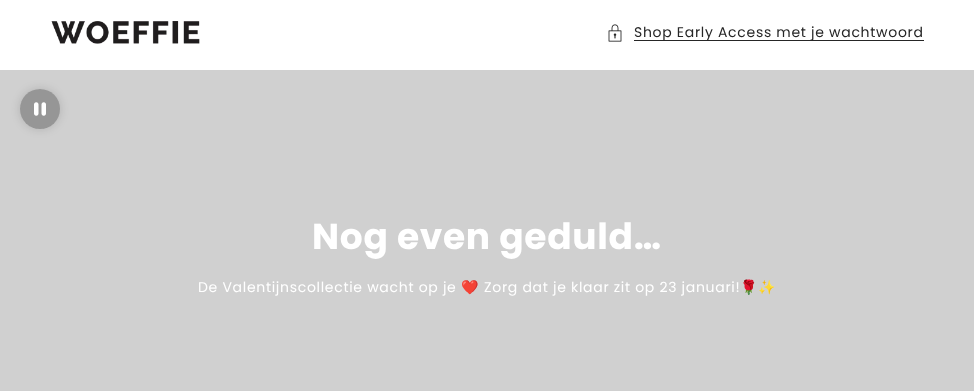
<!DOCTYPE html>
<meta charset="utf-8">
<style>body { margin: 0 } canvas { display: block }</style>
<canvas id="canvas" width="974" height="391"></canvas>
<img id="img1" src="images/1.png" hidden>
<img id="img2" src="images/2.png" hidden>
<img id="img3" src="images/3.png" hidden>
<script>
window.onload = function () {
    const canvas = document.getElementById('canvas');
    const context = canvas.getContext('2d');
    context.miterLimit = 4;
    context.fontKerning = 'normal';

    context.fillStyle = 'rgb(255, 255, 255)';
    context.fillRect(0, 0, 974, 391);
    context.drawImage(document.getElementById('img1'), 51, 21, 149, 23);
    context.drawImage(document.getElementById('img2'), 608, 24, 14, 18);
    context.fillStyle = 'rgb(38, 38, 38)';
    context.fillRect(634, 40, 290, 1);
    context.fillStyle = 'rgb(208, 208, 208)';
    context.fillRect(0, 70, 974, 321);
    context.save();
    context.beginPath();
    context.moveTo(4, 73);
    context.lineTo(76, 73);
    context.lineTo(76, 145);
    context.lineTo(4, 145);
    context.closePath();
    context.moveTo(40, 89);
    context.bezierCurveTo(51, 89, 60, 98, 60, 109);
    context.bezierCurveTo(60, 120, 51, 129, 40, 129);
    context.bezierCurveTo(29, 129, 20, 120, 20, 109);
    context.bezierCurveTo(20, 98, 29, 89, 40, 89);
    context.closePath();
    context.clip('evenodd');
    context.fillStyle = 'rgba(0, 0, 0, 0.15)';
    context.filter = 'blur(5px)';
    context.beginPath();
    context.roundRect(20, 89, 40, 40, 20);
    context.fill();
    context.filter = 'none';
    context.restore();
    context.fillStyle = 'rgba(18, 18, 18, 0.3)';
    context.beginPath();
    context.arc(40, 109, 20, 0, 2 * Math.PI);
    context.fill();
    context.drawImage(document.getElementById('img3'), 34, 102, 12, 14);
    context.letterSpacing = '0.7px';
    context.font = '14px Poppins';
    context.fillStyle = 'rgb(38, 38, 38)';
    context.fillText('Shop Early Access met je wachtwoord', 634, 37);
    context.font = 'bold 36px Poppins';
    context.fillStyle = 'rgb(255, 255, 255)';
    context.fillText('Nog even geduld…', 312, 249);
    context.font = '14px Poppins';
    context.fillText('De Valentijnscollectie wacht op je', 198, 292);
    context.font = '14px Noto Color Emoji';
    context.fillText('❤️', 461, 292);
    context.font = '14px Poppins';
    context.fillText('Zorg dat je klaar zit op 23 januari!', 484, 292);
    context.font = '14px Noto Color Emoji';
    context.fillText('🌹✨', 740, 292);
};
</script>
